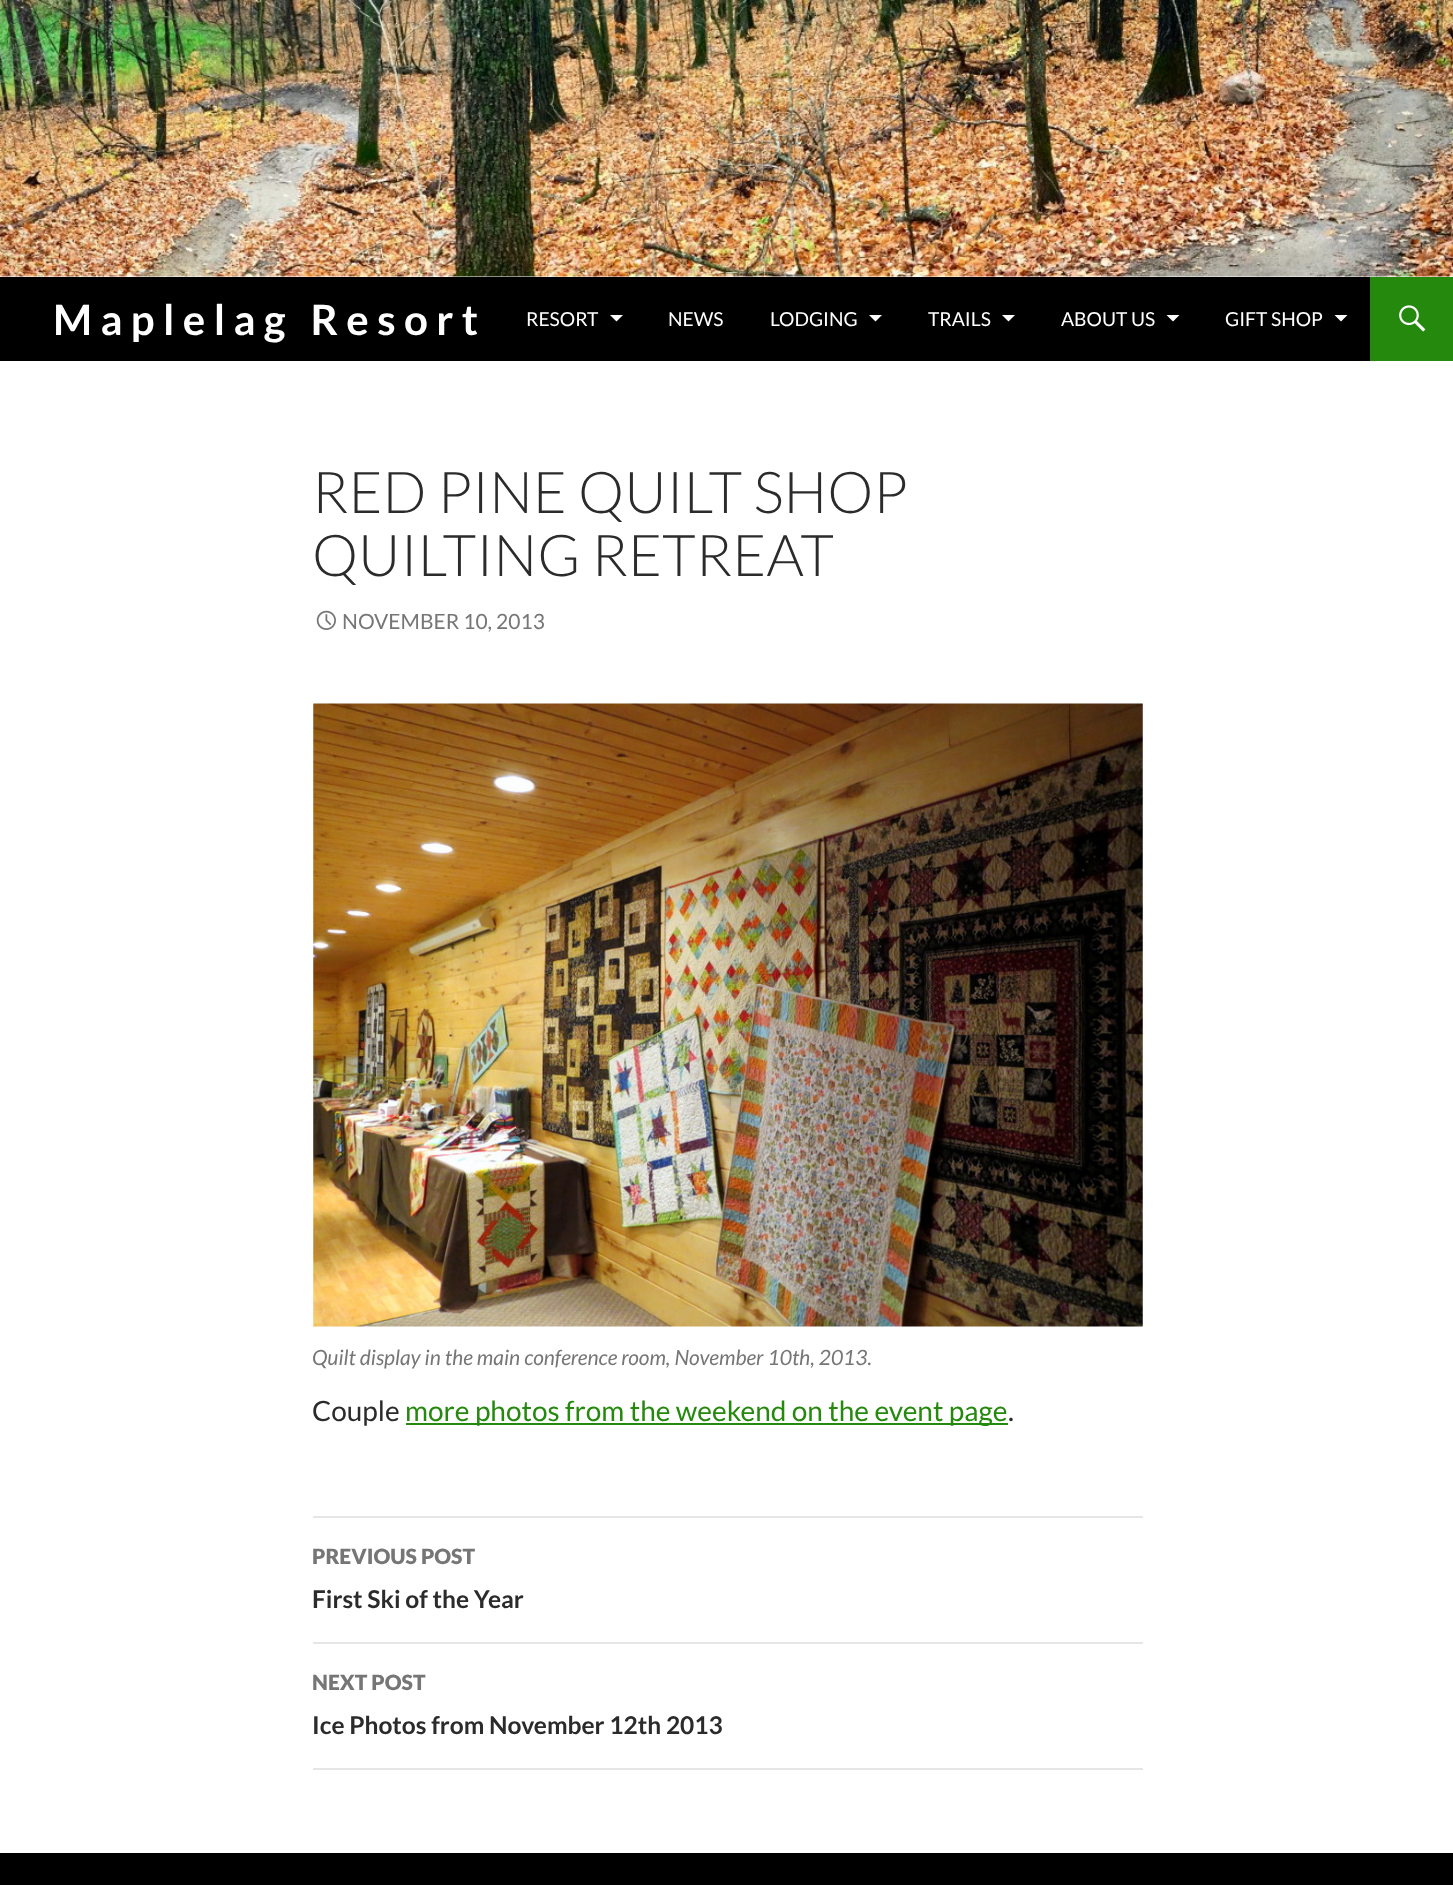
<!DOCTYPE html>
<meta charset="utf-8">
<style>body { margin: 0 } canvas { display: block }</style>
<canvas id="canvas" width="1453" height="1885"></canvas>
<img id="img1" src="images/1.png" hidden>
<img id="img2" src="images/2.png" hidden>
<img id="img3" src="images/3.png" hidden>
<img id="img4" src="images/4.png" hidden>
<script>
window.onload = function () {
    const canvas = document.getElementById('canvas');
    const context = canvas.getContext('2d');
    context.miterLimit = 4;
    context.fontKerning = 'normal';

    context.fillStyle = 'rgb(255, 255, 255)';
    context.fillRect(0, 0, 1453, 1885);
    context.drawImage(document.getElementById('img1'), 0, 0, 1453, 277);
    context.fillStyle = 'rgb(0, 0, 0)';
    context.fillRect(0, 277, 1370, 84);
    context.fillStyle = 'rgb(255, 255, 255)';
    context.beginPath();
    context.moveTo(610, 315);
    context.lineTo(623, 315);
    context.lineTo(616.5, 321.5);
    context.closePath();
    context.fill();
    context.beginPath();
    context.moveTo(869, 315);
    context.lineTo(882, 315);
    context.lineTo(875.5, 321.5);
    context.closePath();
    context.fill();
    context.beginPath();
    context.moveTo(1002, 315);
    context.lineTo(1015, 315);
    context.lineTo(1008.5, 321.5);
    context.closePath();
    context.fill();
    context.beginPath();
    context.moveTo(1166.5, 315);
    context.lineTo(1179.5, 315);
    context.lineTo(1173, 321.5);
    context.closePath();
    context.fill();
    context.beginPath();
    context.moveTo(1334.5, 315);
    context.lineTo(1347.5, 315);
    context.lineTo(1341, 321.5);
    context.closePath();
    context.fill();
    context.fillStyle = 'rgb(36, 137, 13)';
    context.fillRect(1370, 277, 83, 84);
    context.drawImage(document.getElementById('img2'), 1399, 305, 27, 27);
    context.drawImage(document.getElementById('img3'), 316, 610, 20, 20);
    context.drawImage(document.getElementById('img4'), 313, 703, 830, 624);
    context.fillRect(406, 1423, 602, 2);
    context.fillStyle = 'rgb(230, 230, 230)';
    context.fillRect(313, 1516, 830, 2);
    context.fillRect(313, 1642, 830, 2);
    context.fillRect(313, 1768, 830, 2);
    context.fillStyle = 'rgb(0, 0, 0)';
    context.fillRect(0, 1853, 1453, 32);
    context.letterSpacing = '8.4px';
    context.font = 'bold 42px Lato';
    context.fillStyle = 'rgb(255, 255, 255)';
    context.fillText('Maplelag Resort', 53, 335);
    context.letterSpacing = '0px';
    context.font = '19.25px Lato';
    context.fillText('RESORT', 526, 326);
    context.fillText('NEWS', 668, 326);
    context.fillText('LODGING', 770, 326);
    context.fillText('TRAILS', 928, 326);
    context.fillText('ABOUT US', 1061, 326);
    context.fillText('GIFT SHOP', 1225, 326);
    context.font = '300 57.75px Lato';
    context.fillStyle = 'rgb(43, 43, 43)';
    context.fillText('RED PINE QUILT SHOP', 312, 513);
    context.fillText('QUILTING RETREAT', 312, 576);
    context.font = '21px Lato';
    context.fillStyle = 'rgb(118, 118, 118)';
    context.fillText('NOVEMBER 10, 2013', 342, 629);
    context.font = 'italic 21px Lato';
    context.fillText('Quilt display in the main conference room, November 10th, 2013.', 312, 1365);
    context.font = '28px Lato';
    context.fillStyle = 'rgb(43, 43, 43)';
    context.fillText('Couple', 312, 1421);
    context.fillStyle = 'rgb(36, 137, 13)';
    context.fillText('more photos from the weekend on the event page', 405, 1421);
    context.fillStyle = 'rgb(43, 43, 43)';
    context.fillText('.', 1008, 1421);
    context.font = '900 21px Lato';
    context.fillStyle = 'rgb(118, 118, 118)';
    context.fillText('PREVIOUS POST', 312, 1564);
    context.font = 'bold 24.5px Lato';
    context.fillStyle = 'rgb(43, 43, 43)';
    context.fillText('First Ski of the Year', 312, 1608);
    context.font = '900 21px Lato';
    context.fillStyle = 'rgb(118, 118, 118)';
    context.fillText('NEXT POST', 312, 1690);
    context.font = 'bold 24.5px Lato';
    context.fillStyle = 'rgb(43, 43, 43)';
    context.fillText('Ice Photos from November 12th 2013', 312, 1734);
};
</script>
